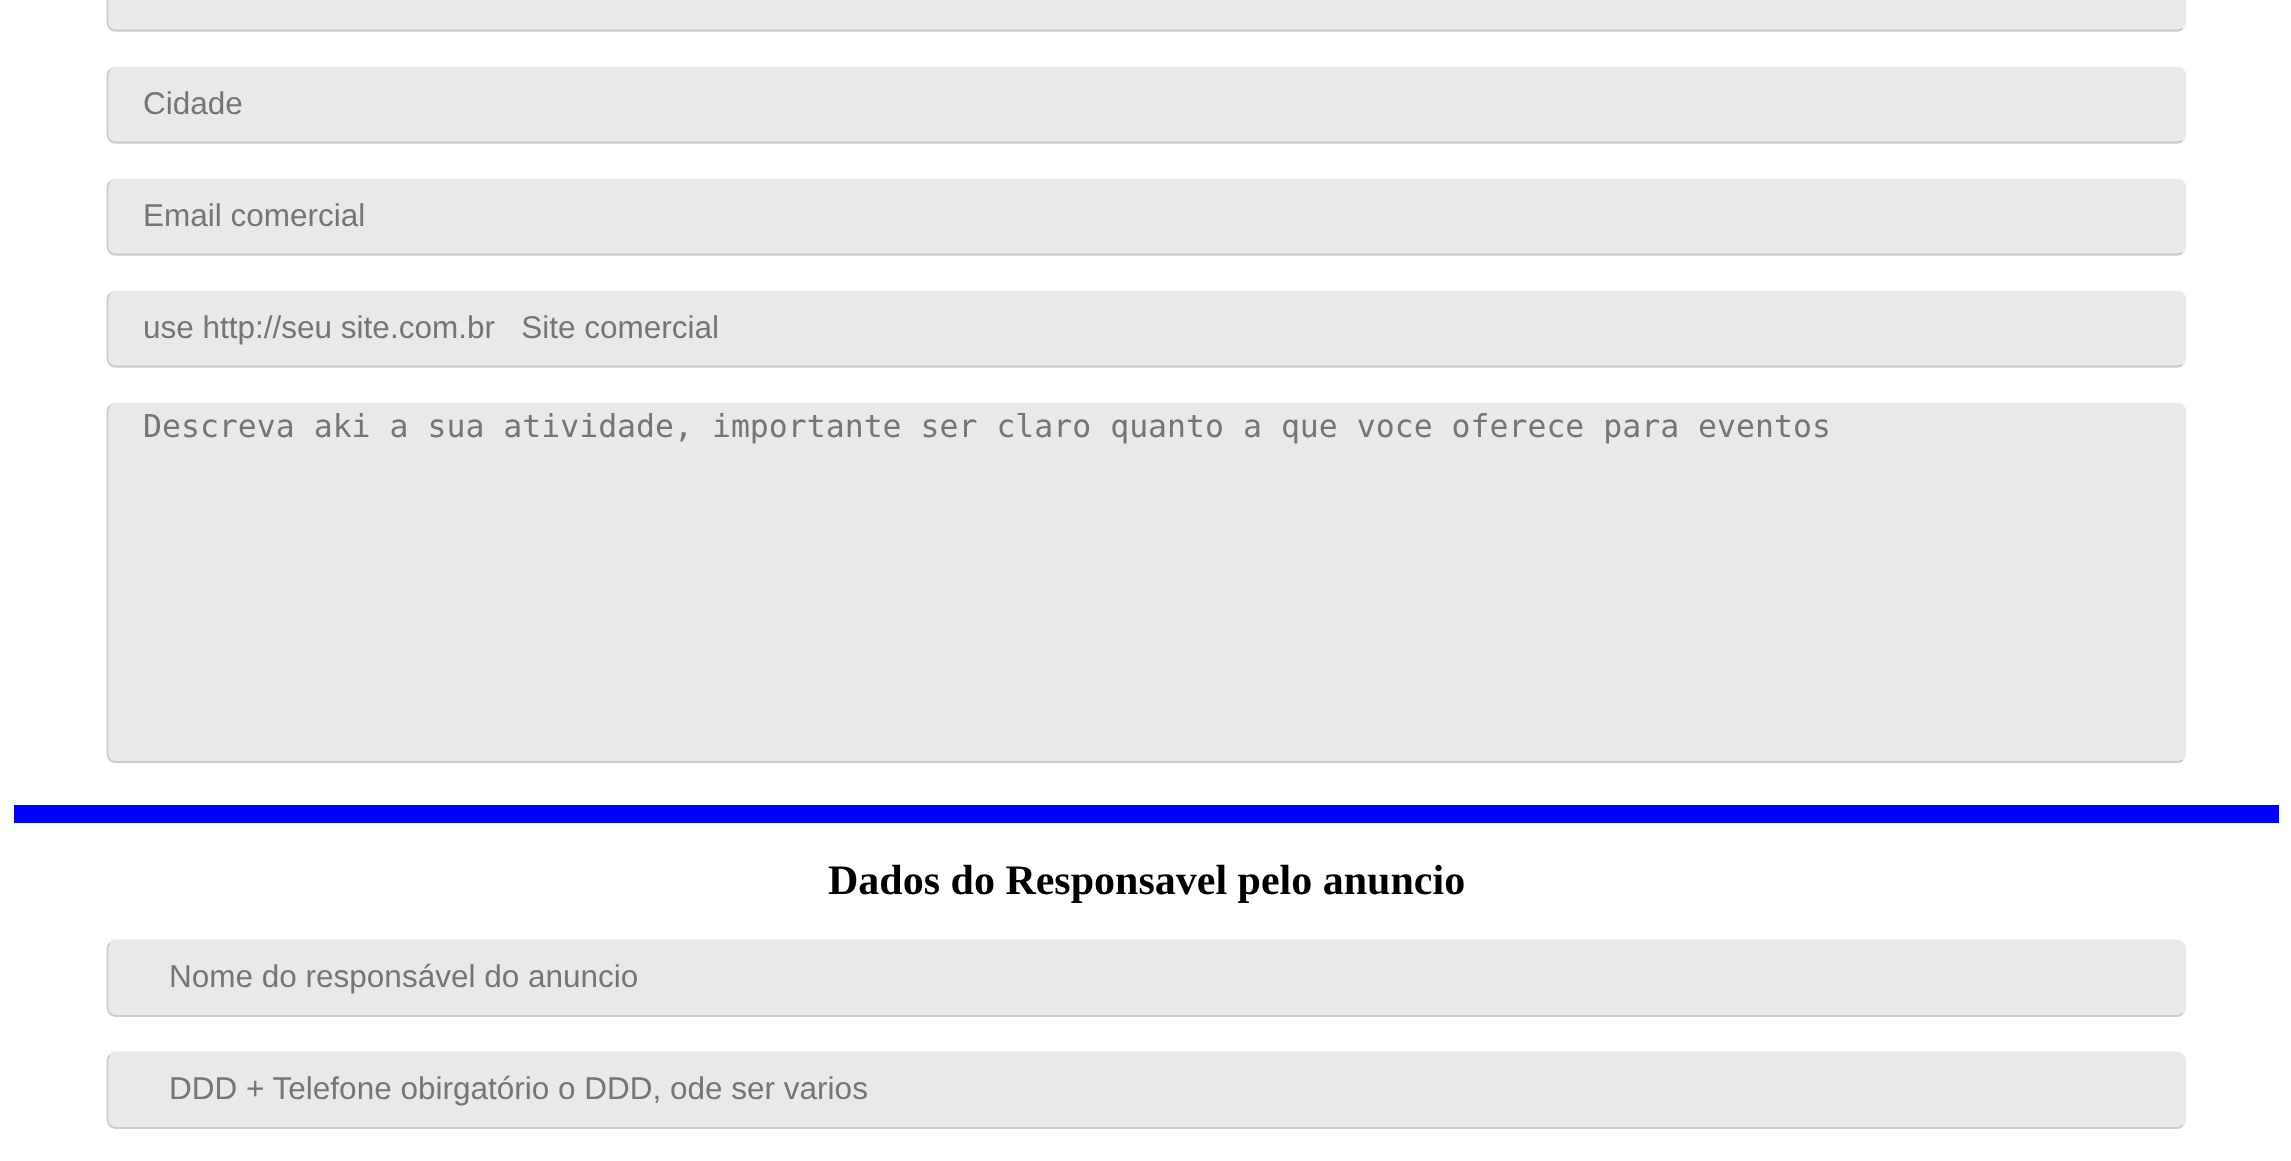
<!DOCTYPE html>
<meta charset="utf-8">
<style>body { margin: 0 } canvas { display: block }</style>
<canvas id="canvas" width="2291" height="1161"></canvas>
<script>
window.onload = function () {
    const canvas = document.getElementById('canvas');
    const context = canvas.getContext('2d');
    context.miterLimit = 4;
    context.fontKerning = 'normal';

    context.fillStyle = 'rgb(255, 255, 255)';
    context.fillRect(0, 0, 2291, 1161);
    context.fillStyle = 'rgb(233, 233, 233)';
    context.beginPath();
    context.roundRect(107, -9, 2079, 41, 9);
    context.fill();
    context.beginPath();
    context.moveTo(110, -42.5);
    context.bezierCurveTo(111.5, -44, 113.5, -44.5, 115.5, -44.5);
    context.lineTo(2177, -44.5);
    context.bezierCurveTo(2179, -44.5, 2181, -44, 2182.5, -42.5);
    context.bezierCurveTo(2184, -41, 2185, -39, 2185, -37);
    context.lineTo(2185, 22.5);
    context.bezierCurveTo(2185, 25, 2184, 27, 2182.5, 28.5);
    context.strokeStyle = 'rgb(233, 233, 233)';
    context.lineWidth = 1.8;
    context.stroke();
    context.beginPath();
    context.moveTo(2182.5, 28.5);
    context.bezierCurveTo(2181, 30, 2179, 30.5, 2177, 30.5);
    context.lineTo(115.5, 30.5);
    context.bezierCurveTo(113.5, 30.5, 111.5, 30, 110, 28.5);
    context.bezierCurveTo(108.5, 27, 107.5, 25, 107.5, 23);
    context.lineTo(107.5, -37);
    context.bezierCurveTo(107.5, -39, 108.5, -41, 110, -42.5);
    context.strokeStyle = 'rgb(204, 204, 204)';
    context.stroke();
    context.beginPath();
    context.roundRect(107, 67, 2079, 77, 9);
    context.fill();
    context.beginPath();
    context.moveTo(110, 69.5);
    context.bezierCurveTo(111.5, 68, 113.5, 67.5, 115.5, 67.5);
    context.lineTo(2177, 67.5);
    context.bezierCurveTo(2179, 67.5, 2181, 68, 2182.5, 69.5);
    context.bezierCurveTo(2184, 71, 2185, 73, 2185, 75);
    context.lineTo(2185, 135);
    context.bezierCurveTo(2185, 137, 2184, 139, 2182.5, 140.5);
    context.strokeStyle = 'rgb(233, 233, 233)';
    context.stroke();
    context.beginPath();
    context.moveTo(2182.5, 140.5);
    context.bezierCurveTo(2181, 142, 2179, 142.5, 2177, 142.5);
    context.lineTo(115.5, 142.5);
    context.bezierCurveTo(113.5, 142.5, 111.5, 142, 110, 140.5);
    context.bezierCurveTo(108.5, 139, 107.5, 137, 107.5, 135);
    context.lineTo(107.5, 75);
    context.bezierCurveTo(107.5, 73, 108.5, 71, 110, 69.5);
    context.strokeStyle = 'rgb(204, 204, 204)';
    context.stroke();
    context.beginPath();
    context.roundRect(107, 179, 2079, 77, 9);
    context.fill();
    context.beginPath();
    context.moveTo(110, 181.5);
    context.bezierCurveTo(111.5, 180, 113.5, 179.5, 115.5, 179.5);
    context.lineTo(2177, 179.5);
    context.bezierCurveTo(2179, 179.5, 2181, 180, 2182.5, 181.5);
    context.bezierCurveTo(2184, 183, 2185, 185, 2185, 187);
    context.lineTo(2185, 247);
    context.bezierCurveTo(2185, 249, 2184, 251, 2182.5, 252.5);
    context.strokeStyle = 'rgb(233, 233, 233)';
    context.stroke();
    context.beginPath();
    context.moveTo(2182.5, 252.5);
    context.bezierCurveTo(2181, 254, 2179, 254.5, 2177, 254.5);
    context.lineTo(115.5, 254.5);
    context.bezierCurveTo(113.5, 254.5, 111.5, 254, 110, 252.5);
    context.bezierCurveTo(108.5, 251, 107.5, 249, 107.5, 247);
    context.lineTo(107.5, 187);
    context.bezierCurveTo(107.5, 185, 108.5, 183, 110, 181.5);
    context.strokeStyle = 'rgb(204, 204, 204)';
    context.stroke();
    context.beginPath();
    context.roundRect(107, 291, 2079, 77, 9);
    context.fill();
    context.beginPath();
    context.moveTo(110, 293.5);
    context.bezierCurveTo(111.5, 292, 113.5, 291.5, 115.5, 291.5);
    context.lineTo(2177, 291.5);
    context.bezierCurveTo(2179, 291.5, 2181, 292, 2182.5, 293.5);
    context.bezierCurveTo(2184, 295, 2185, 297, 2185, 299);
    context.lineTo(2185, 359);
    context.bezierCurveTo(2185, 361, 2184, 363, 2182.5, 364.5);
    context.strokeStyle = 'rgb(233, 233, 233)';
    context.stroke();
    context.beginPath();
    context.moveTo(2182.5, 364.5);
    context.bezierCurveTo(2181, 366, 2179, 366.5, 2177, 366.5);
    context.lineTo(115.5, 366.5);
    context.bezierCurveTo(113.5, 366.5, 111.5, 366, 110, 364.5);
    context.bezierCurveTo(108.5, 363, 107.5, 361, 107.5, 359);
    context.lineTo(107.5, 299);
    context.bezierCurveTo(107.5, 297, 108.5, 295, 110, 293.5);
    context.strokeStyle = 'rgb(204, 204, 204)';
    context.stroke();
    context.beginPath();
    context.roundRect(107, 403, 2079, 360, 9);
    context.fill();
    context.beginPath();
    context.moveTo(110, 405.5);
    context.bezierCurveTo(111.5, 404, 113.5, 403.5, 115.5, 403.5);
    context.lineTo(2177, 403.5);
    context.bezierCurveTo(2179, 403.5, 2181, 404, 2182.5, 405.5);
    context.bezierCurveTo(2184, 407, 2185, 409, 2185, 411);
    context.lineTo(2185, 754);
    context.bezierCurveTo(2185, 756.5, 2184, 758.5, 2182.5, 760);
    context.strokeStyle = 'rgb(233, 233, 233)';
    context.stroke();
    context.beginPath();
    context.moveTo(2182.5, 760);
    context.bezierCurveTo(2181, 761.5, 2179, 762, 2177, 762);
    context.lineTo(115.5, 762);
    context.bezierCurveTo(113.5, 762, 111.5, 761.5, 110, 760);
    context.bezierCurveTo(108.5, 758.5, 107.5, 756.5, 107.5, 754);
    context.lineTo(107.5, 411);
    context.bezierCurveTo(107.5, 409, 108.5, 407, 110, 405.5);
    context.strokeStyle = 'rgb(204, 204, 204)';
    context.stroke();
    context.fillStyle = 'rgb(0, 0, 255)';
    context.fillRect(14, 805, 2265, 18);
    context.fillStyle = 'rgb(233, 233, 233)';
    context.beginPath();
    context.roundRect(107, 940, 2079, 77, 9);
    context.fill();
    context.beginPath();
    context.moveTo(110, 943);
    context.bezierCurveTo(111.5, 941.5, 113.5, 940.5, 115.5, 940.5);
    context.lineTo(2177, 940.5);
    context.bezierCurveTo(2179, 940.5, 2181, 941.5, 2182.5, 943);
    context.bezierCurveTo(2184, 944.5, 2185, 946.5, 2185, 948.5);
    context.lineTo(2185, 1008);
    context.bezierCurveTo(2185, 1010, 2184, 1012, 2182.5, 1013.5);
    context.strokeStyle = 'rgb(233, 233, 233)';
    context.stroke();
    context.beginPath();
    context.moveTo(2182.5, 1013.5);
    context.bezierCurveTo(2181, 1015, 2179, 1016, 2177, 1016);
    context.lineTo(115.5, 1016);
    context.bezierCurveTo(113.5, 1016, 111.5, 1015, 110, 1013.5);
    context.bezierCurveTo(108.5, 1012, 107.5, 1010, 107.5, 1008);
    context.lineTo(107.5, 948.5);
    context.bezierCurveTo(107.5, 946.5, 108.5, 944.5, 110, 943);
    context.strokeStyle = 'rgb(204, 204, 204)';
    context.stroke();
    context.beginPath();
    context.roundRect(107, 1052, 2079, 77, 9);
    context.fill();
    context.beginPath();
    context.moveTo(110, 1055);
    context.bezierCurveTo(111.5, 1053.5, 113.5, 1052.5, 115.5, 1052.5);
    context.lineTo(2177, 1052.5);
    context.bezierCurveTo(2179, 1052.5, 2181, 1053.5, 2182.5, 1055);
    context.bezierCurveTo(2184, 1056.5, 2185, 1058.5, 2185, 1060.5);
    context.lineTo(2185, 1120);
    context.bezierCurveTo(2185, 1122, 2184, 1124, 2182.5, 1125.5);
    context.strokeStyle = 'rgb(233, 233, 233)';
    context.stroke();
    context.beginPath();
    context.moveTo(2182.5, 1125.5);
    context.bezierCurveTo(2181, 1127, 2179, 1128, 2177, 1128);
    context.lineTo(115.5, 1128);
    context.bezierCurveTo(113.5, 1128, 111.5, 1127, 110, 1125.5);
    context.bezierCurveTo(108.5, 1124, 107.5, 1122, 107.5, 1120);
    context.lineTo(107.5, 1060.5);
    context.bezierCurveTo(107.5, 1058.5, 108.5, 1056.5, 110, 1055);
    context.strokeStyle = 'rgb(204, 204, 204)';
    context.stroke();
    context.font = '31.5px Liberation Sans';
    context.fillStyle = 'rgb(117, 117, 117)';
    context.fillText('Cidade', 143, 114);
    context.fillText('Email comercial', 143, 226);
    context.fillText('use http://seu site.com.br   Site comercial', 143, 338);
    context.font = '31.5px DejaVu Sans Mono';
    context.fillText('Descreva aki a sua atividade, importante ser claro quanto a que voce oferece para eventos', 143, 437);
    context.font = 'bold 42px Liberation Serif';
    context.fillStyle = 'rgb(0, 0, 0)';
    context.fillText('Dados do Responsavel pelo anuncio', 828, 894);
    context.font = '31.5px Liberation Sans';
    context.fillStyle = 'rgb(117, 117, 117)';
    context.fillText('Nome do responsável do anuncio', 169, 987);
    context.fillText('DDD + Telefone obirgatório o DDD, ode ser varios', 169, 1099);
};
</script>
